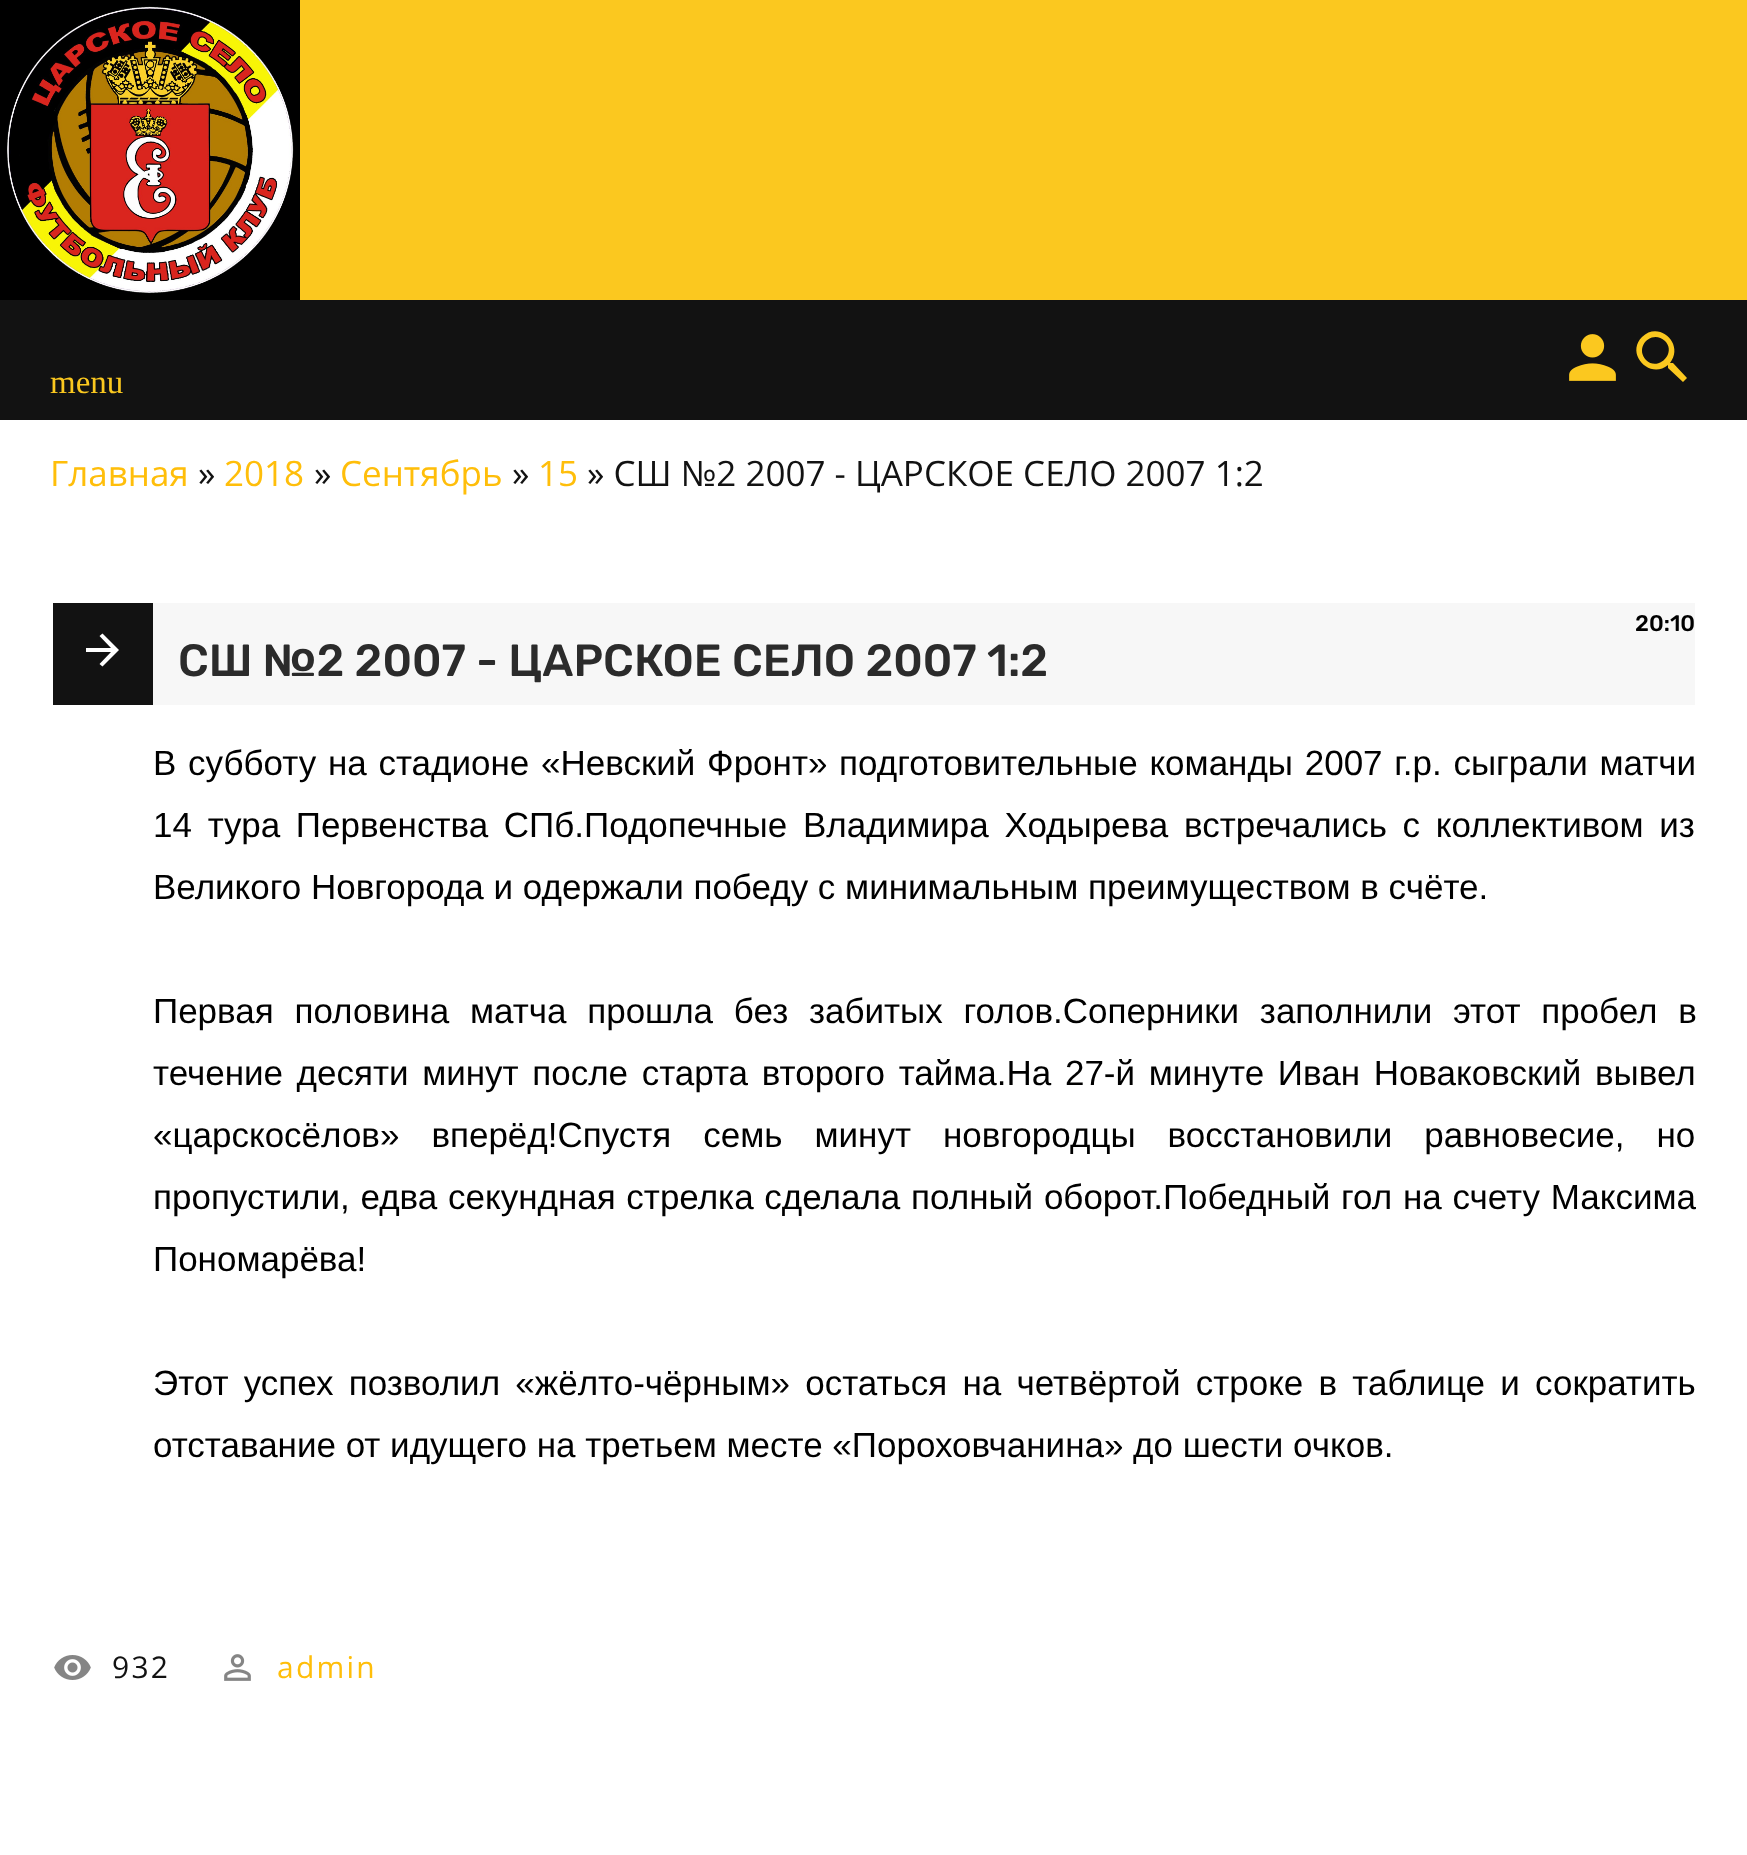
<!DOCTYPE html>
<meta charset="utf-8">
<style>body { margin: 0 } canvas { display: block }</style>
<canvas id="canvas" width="1747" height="1855"></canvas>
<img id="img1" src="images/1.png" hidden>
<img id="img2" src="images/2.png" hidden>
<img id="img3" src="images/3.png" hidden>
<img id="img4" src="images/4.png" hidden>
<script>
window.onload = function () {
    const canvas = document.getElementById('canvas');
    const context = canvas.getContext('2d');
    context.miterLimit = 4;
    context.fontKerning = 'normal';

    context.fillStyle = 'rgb(251, 200, 31)';
    context.fillRect(0, 0, 1747, 1855);
    context.drawImage(document.getElementById('img1'), 0, 0, 300, 300);
    context.fillStyle = 'rgb(18, 18, 18)';
    context.fillRect(0, 300, 1747, 120);
    context.drawImage(document.getElementById('img2'), 1569, 334, 47, 47);
    context.fillStyle = 'rgb(251, 200, 31)';
    context.beginPath();
    context.moveTo(1646, 360);
    context.bezierCurveTo(1658, 372, 1677, 353, 1665, 341);
    context.bezierCurveTo(1652, 329, 1634, 347, 1646, 360);
    context.closePath();
    context.moveTo(1673, 363);
    context.lineTo(1687, 378);
    context.lineTo(1683, 382);
    context.lineTo(1668, 368);
    context.lineTo(1668, 365);
    context.bezierCurveTo(1650, 380, 1625, 354, 1642, 337);
    context.bezierCurveTo(1659, 320, 1685, 344, 1670, 363);
    context.closePath();
    context.fill();
    context.fillStyle = 'rgb(255, 255, 255)';
    context.fillRect(0, 420, 1747, 1435);
    context.fillStyle = 'rgb(247, 247, 247)';
    context.fillRect(153, 603, 1542, 102);
    context.fillStyle = 'rgb(18, 18, 18)';
    context.fillRect(53, 603, 100, 102);
    context.fillStyle = 'rgb(255, 255, 255)';
    context.beginPath();
    context.moveTo(102.5, 633.5);
    context.lineTo(119, 650);
    context.lineTo(102.5, 666.5);
    context.lineTo(99.5, 664);
    context.lineTo(111, 652);
    context.lineTo(86, 652);
    context.lineTo(86, 648);
    context.lineTo(111, 648);
    context.lineTo(99.5, 636);
    context.closePath();
    context.fill();
    context.drawImage(document.getElementById('img3'), 54, 1655, 37, 25);
    context.drawImage(document.getElementById('img4'), 224, 1654, 27, 27);
    context.font = '33px Liberation Serif';
    context.fillStyle = 'rgb(251, 200, 31)';
    context.fillText('menu', 50, 393);
    context.font = '35px Open Sans';
    context.fillStyle = 'rgb(255, 190, 10)';
    context.fillText('Главная', 50, 486);
    context.fillStyle = 'rgb(18, 18, 18)';
    context.fillText('»', 198, 486);
    context.fillStyle = 'rgb(255, 190, 10)';
    context.fillText('2018', 224, 486);
    context.fillStyle = 'rgb(18, 18, 18)';
    context.fillText('»', 314, 486);
    context.fillStyle = 'rgb(255, 190, 10)';
    context.fillText('Сентябрь', 340, 486);
    context.fillStyle = 'rgb(18, 18, 18)';
    context.fillText('»', 512, 486);
    context.fillStyle = 'rgb(255, 190, 10)';
    context.fillText('15', 538, 486);
    context.fillStyle = 'rgb(18, 18, 18)';
    context.fillText('» СШ №2 2007 - ЦАРСКОЕ СЕЛО 2007 1:2', 587, 486);
    context.font = '500 22.5px Rubik';
    context.fillStyle = 'rgb(0, 0, 0)';
    context.fillText('20:10', 1635, 631);
    context.font = '500 45px Rubik';
    context.fillStyle = 'rgb(43, 43, 43)';
    context.fillText('СШ №2 2007 - ЦАРСКОЕ СЕЛО 2007 1:2', 178, 676);
    context.wordSpacing = '2px';
    context.font = '35px Liberation Sans';
    context.fillStyle = 'rgb(0, 0, 0)';
    context.fillText('В субботу на стадионе «Невский Фронт» подготовительные команды 2007 г.р. сыграли матчи', 153, 775);
    context.wordSpacing = '6px';
    context.fillText('14 тура Первенства СПб.Подопечные Владимира Ходырева встречались с коллективом из', 153, 837);
    context.wordSpacing = '0px';
    context.fillText('Великого Новгорода и одержали победу с минимальным преимуществом в счёте.', 153, 899);
    context.wordSpacing = '11px';
    context.fillText('Первая половина матча прошла без забитых голов.Соперники заполнили этот пробел в', 153, 1023);
    context.wordSpacing = '3.9px';
    context.fillText('течение десяти минут после старта второго тайма.На 27-й минуте Иван Новаковский вывел', 153, 1085);
    context.wordSpacing = '22.25px';
    context.fillText('«царскосёлов» вперёд!Спустя семь минут новгородцы восстановили равновесие, но', 153, 1147);
    context.wordSpacing = '1px';
    context.fillText('пропустили, едва секундная стрелка сделала полный оборот.Победный гол на счету Максима', 153, 1209);
    context.wordSpacing = '0px';
    context.fillText('Пономарёва!', 153, 1271);
    context.wordSpacing = '5.5px';
    context.fillText('Этот успех позволил «жёлто-чёрным» остаться на четвёртой строке в таблице и сократить', 153, 1395);
    context.wordSpacing = '0px';
    context.fillText('отставание от идущего на третьем месте «Пороховчанина» до шести очков.', 153, 1457);
    context.letterSpacing = '2.25px';
    context.font = '30px Open Sans';
    context.fillStyle = 'rgb(18, 18, 18)';
    context.fillText('932', 112, 1678);
    context.fillStyle = 'rgb(255, 190, 10)';
    context.fillText('admin', 277, 1678);
};
</script>
